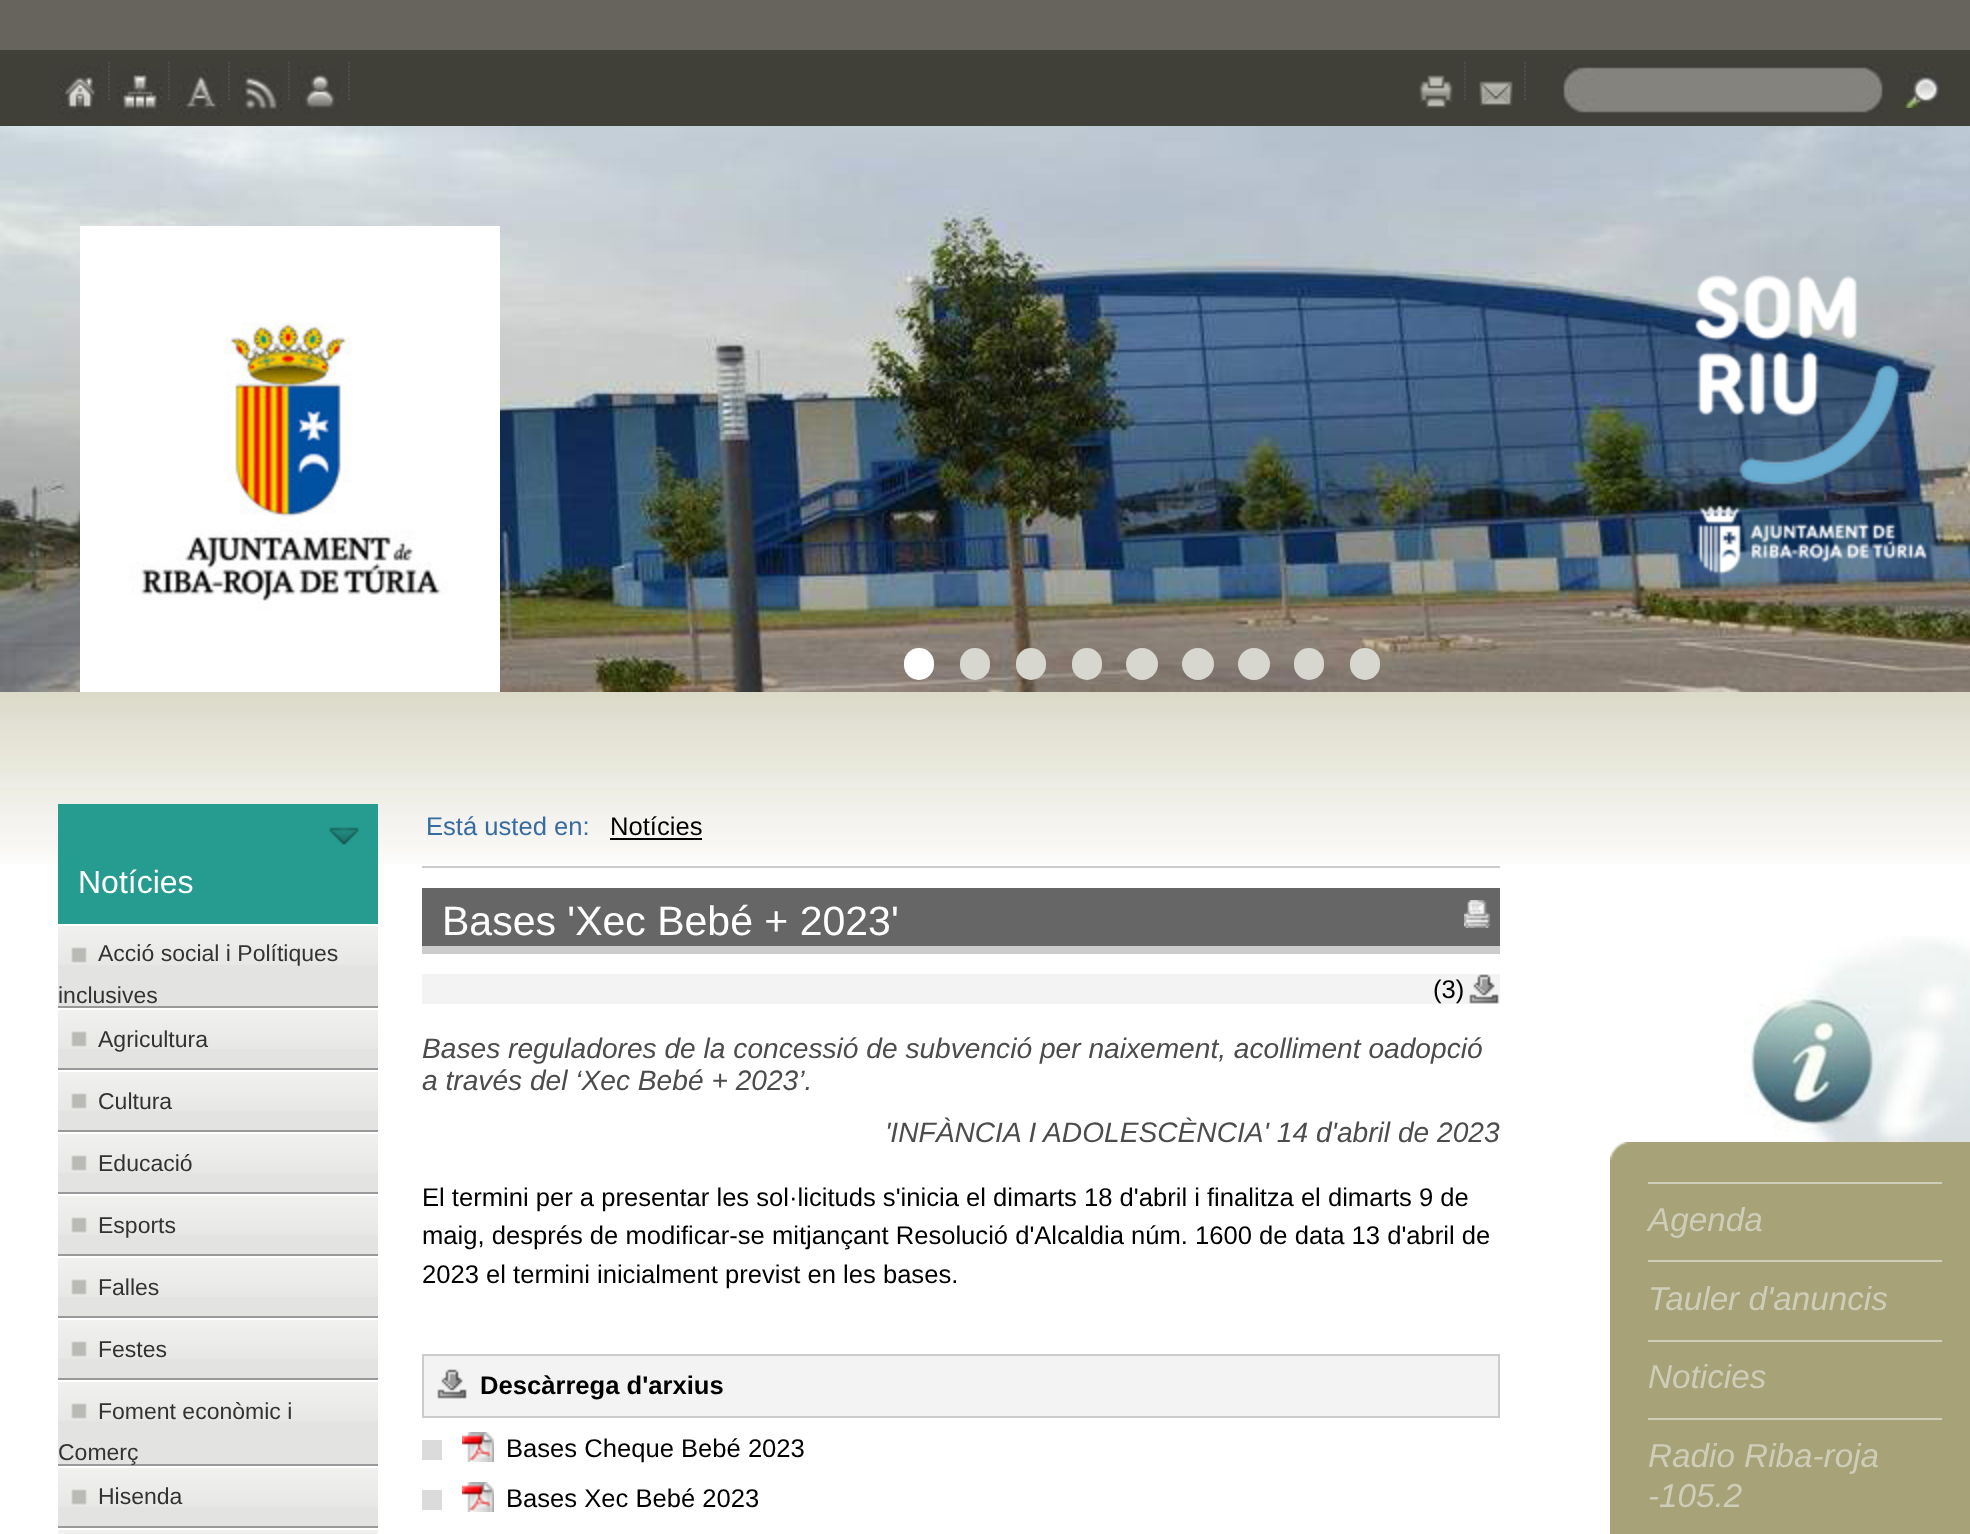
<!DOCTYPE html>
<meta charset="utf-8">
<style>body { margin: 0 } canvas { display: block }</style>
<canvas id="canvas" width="1970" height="1534"></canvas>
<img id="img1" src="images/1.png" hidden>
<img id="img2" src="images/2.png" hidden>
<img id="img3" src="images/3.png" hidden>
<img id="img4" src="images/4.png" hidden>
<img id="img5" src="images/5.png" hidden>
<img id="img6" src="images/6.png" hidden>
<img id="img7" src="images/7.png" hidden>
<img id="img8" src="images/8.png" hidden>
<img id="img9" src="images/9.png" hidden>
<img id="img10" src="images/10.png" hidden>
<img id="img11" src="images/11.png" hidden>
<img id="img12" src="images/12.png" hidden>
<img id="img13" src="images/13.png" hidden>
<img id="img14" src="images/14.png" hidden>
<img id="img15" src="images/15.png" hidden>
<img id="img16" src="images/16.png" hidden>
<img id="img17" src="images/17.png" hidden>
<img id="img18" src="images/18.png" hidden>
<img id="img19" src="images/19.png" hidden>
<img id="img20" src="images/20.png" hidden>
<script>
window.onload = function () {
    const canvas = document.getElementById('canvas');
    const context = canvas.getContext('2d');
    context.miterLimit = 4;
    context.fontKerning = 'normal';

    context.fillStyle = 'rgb(103, 100, 93)';
    context.fillRect(0, 0, 1970, 1534);
    context.fillStyle = 'rgb(64, 64, 56)';
    context.fillRect(0, 50, 1970, 76);
    context.drawImage(document.getElementById('img1'), 108, 62, 2, 38);
    context.drawImage(document.getElementById('img2'), 58, 66, 44, 48);
    context.drawImage(document.getElementById('img1'), 168, 62, 2, 38);
    context.drawImage(document.getElementById('img3'), 118, 68, 44, 46);
    context.drawImage(document.getElementById('img1'), 228, 62, 2, 38);
    context.drawImage(document.getElementById('img4'), 178, 66, 44, 48);
    context.drawImage(document.getElementById('img1'), 288, 62, 2, 38);
    context.drawImage(document.getElementById('img5'), 238, 68, 44, 46);
    context.drawImage(document.getElementById('img1'), 348, 62, 2, 38);
    context.drawImage(document.getElementById('img6'), 298, 66, 44, 48);
    context.drawImage(document.getElementById('img1'), 1464, 62, 2, 38);
    context.drawImage(document.getElementById('img7'), 1419, 75, 34, 34);
    context.drawImage(document.getElementById('img1'), 1524, 62, 2, 38);
    context.drawImage(document.getElementById('img8'), 1479, 81, 34, 25);
    context.drawImage(document.getElementById('img9'), 1562, 64, 321, 49);
    context.drawImage(document.getElementById('img10'), 1901, 68, 39, 40);
    context.drawImage(document.getElementById('img11'), 0, 126, 1970, 566);
    context.fillStyle = 'rgb(255, 255, 255)';
    context.beginPath();
    context.roundRect(904, 648, 30, 32, 15);
    context.fill();
    context.fillStyle = 'rgb(216, 215, 207)';
    context.beginPath();
    context.roundRect(960, 648, 30, 32, 15);
    context.fill();
    context.beginPath();
    context.roundRect(1016, 648, 30, 32, 15);
    context.fill();
    context.beginPath();
    context.roundRect(1072, 648, 30, 32, 15);
    context.fill();
    context.beginPath();
    context.arc(1142, 664, 16, 0, 2 * Math.PI);
    context.fill();
    context.beginPath();
    context.arc(1198, 664, 16, 0, 2 * Math.PI);
    context.fill();
    context.beginPath();
    context.arc(1254, 664, 16, 0, 2 * Math.PI);
    context.fill();
    context.beginPath();
    context.roundRect(1294, 648, 30, 32, 15);
    context.fill();
    context.beginPath();
    context.roundRect(1350, 648, 30, 32, 15);
    context.fill();
    context.drawImage(document.getElementById('img12'), 80, 226, 420, 466);
    context.fillStyle = 'rgb(255, 255, 255)';
    context.fillRect(0, 864, 1970, 670);
    context.drawImage(document.getElementById('img13'), 0, 692, 1970, 172);
    context.fillStyle = 'rgb(38, 155, 144)';
    context.fillRect(58, 804, 320, 120);
    context.drawImage(document.getElementById('img14'), 329, 827, 30, 18);
    context.fillStyle = 'rgb(227, 227, 225)';
    context.fillRect(58, 965, 320, 41);
    context.drawImage(document.getElementById('img15'), 58, 926, 320, 39);
    context.fillStyle = 'rgb(153, 153, 153)';
    context.fillRect(58, 1006, 320, 2);
    context.fillStyle = 'rgb(227, 227, 225)';
    context.fillRect(58, 1049, 320, 19);
    context.drawImage(document.getElementById('img15'), 58, 1010, 320, 39);
    context.fillStyle = 'rgb(153, 153, 153)';
    context.fillRect(58, 1068, 320, 2);
    context.fillStyle = 'rgb(227, 227, 225)';
    context.fillRect(58, 1111, 320, 19);
    context.drawImage(document.getElementById('img15'), 58, 1072, 320, 39);
    context.fillStyle = 'rgb(153, 153, 153)';
    context.fillRect(58, 1130, 320, 2);
    context.fillStyle = 'rgb(227, 227, 225)';
    context.fillRect(58, 1173, 320, 19);
    context.drawImage(document.getElementById('img15'), 58, 1134, 320, 39);
    context.fillStyle = 'rgb(153, 153, 153)';
    context.fillRect(58, 1192, 320, 2);
    context.fillStyle = 'rgb(227, 227, 225)';
    context.fillRect(58, 1235, 320, 19);
    context.drawImage(document.getElementById('img15'), 58, 1196, 320, 39);
    context.fillStyle = 'rgb(153, 153, 153)';
    context.fillRect(58, 1254, 320, 2);
    context.fillStyle = 'rgb(227, 227, 225)';
    context.fillRect(58, 1297, 320, 19);
    context.drawImage(document.getElementById('img15'), 58, 1258, 320, 39);
    context.fillStyle = 'rgb(153, 153, 153)';
    context.fillRect(58, 1316, 320, 2);
    context.fillStyle = 'rgb(227, 227, 225)';
    context.fillRect(58, 1359, 320, 19);
    context.drawImage(document.getElementById('img15'), 58, 1320, 320, 39);
    context.fillStyle = 'rgb(153, 153, 153)';
    context.fillRect(58, 1378, 320, 2);
    context.fillStyle = 'rgb(227, 227, 225)';
    context.fillRect(58, 1421, 320, 43);
    context.drawImage(document.getElementById('img15'), 58, 1382, 320, 39);
    context.fillStyle = 'rgb(153, 153, 153)';
    context.fillRect(58, 1464, 320, 2);
    context.fillStyle = 'rgb(227, 227, 225)';
    context.fillRect(58, 1507, 320, 19);
    context.drawImage(document.getElementById('img15'), 58, 1468, 320, 39);
    context.fillStyle = 'rgb(153, 153, 153)';
    context.fillRect(58, 1526, 320, 2);
    context.fillStyle = 'rgb(240, 240, 239)';
    context.fillRect(58, 1530, 320, 4);
    context.fillStyle = 'rgb(0, 0, 0)';
    context.fillRect(610, 838, 92, 2);
    context.fillStyle = 'rgb(204, 204, 204)';
    context.fillRect(422, 866, 1078, 2);
    context.fillStyle = 'rgb(102, 102, 102)';
    context.fillRect(422, 888, 1078, 58);
    context.fillStyle = 'rgb(204, 204, 204)';
    context.fillRect(422, 946, 1078, 8);
    context.drawImage(document.getElementById('img16'), 1464, 900, 26, 28);
    context.fillStyle = 'rgb(243, 243, 243)';
    context.fillRect(422, 974, 1078, 30);
    context.drawImage(document.getElementById('img17'), 1469, 974, 30, 30);
    context.fillRect(424, 1356, 1074, 60);
    context.drawImage(document.getElementById('img17'), 437, 1369, 30, 30);
    context.strokeStyle = 'rgb(204, 204, 204)';
    context.lineWidth = 2;
    context.strokeRect(423, 1355, 1076, 62);
    context.fillStyle = 'rgb(220, 219, 219)';
    context.fillRect(422, 1440, 20, 20);
    context.drawImage(document.getElementById('img18'), 462, 1432, 32, 30);
    context.fillRect(422, 1490, 20, 20);
    context.drawImage(document.getElementById('img18'), 462, 1482, 32, 30);
    context.drawImage(document.getElementById('img19'), 1744, 936, 226, 206);
    context.fillStyle = 'rgb(167, 162, 120)';
    context.fillRect(1610, 1142, 360, 392);
    context.drawImage(document.getElementById('img20'), 1610, 1142, 18, 18);
    context.fillStyle = 'rgb(206, 205, 184)';
    context.fillRect(1648, 1182, 294, 2);
    context.fillRect(1648, 1260, 294, 2);
    context.fillRect(1648, 1340, 294, 2);
    context.fillRect(1648, 1418, 294, 2);
    context.font = '32px Liberation Sans';
    context.fillStyle = 'rgb(255, 255, 255)';
    context.fillText('Notícies', 78, 893);
    context.font = '23px Liberation Sans';
    context.fillStyle = 'rgb(51, 51, 51)';
    context.fillText('Acció social i Polítiques', 98, 961);
    context.fillText('inclusives', 58, 1003);
    context.fillText('Agricultura', 98, 1047);
    context.fillText('Cultura', 98, 1109);
    context.fillText('Educació', 98, 1171);
    context.fillText('Esports', 98, 1233);
    context.fillText('Falles', 98, 1295);
    context.fillText('Festes', 98, 1357);
    context.fillText('Foment econòmic i', 98, 1419);
    context.fillText('Comerç', 58, 1460);
    context.fillText('Hisenda', 98, 1504);
    context.font = '25.6px Liberation Sans';
    context.fillStyle = 'rgb(55, 108, 162)';
    context.fillText('Está usted en:', 426, 835);
    context.fillStyle = 'rgb(0, 0, 0)';
    context.fillText('Notícies', 610, 835);
    context.font = '41px Liberation Sans';
    context.fillStyle = 'rgb(255, 255, 255)';
    context.fillText('Bases \'Xec Bebé + 2023\'', 442, 935);
    context.font = '25.6px Liberation Sans';
    context.fillStyle = 'rgb(0, 0, 0)';
    context.fillText('(3)', 1433, 998);
    context.font = 'italic 28.15px Liberation Sans';
    context.fillStyle = 'rgb(76, 76, 76)';
    context.fillText('Bases reguladores de la concessió de subvenció per naixement, acolliment oadopció', 422, 1058);
    context.fillText('a través del ‘Xec Bebé + 2023’.', 422, 1090);
    context.fillText('\'INFÀNCIA I ADOLESCÈNCIA\' 14 d\'abril de 2023', 885, 1142);
    context.font = '25.6px Liberation Sans';
    context.fillStyle = 'rgb(0, 0, 0)';
    context.fillText('El termini per a presentar les sol·licituds s\'inicia el dimarts 18 d\'abril i finalitza el dimarts 9 de', 422, 1206);
    context.fillText('maig, després de modificar-se mitjançant Resolució d\'Alcaldia núm. 1600 de data 13 d\'abril de', 422, 1244);
    context.fillText('2023 el termini inicialment previst en les bases.', 422, 1283);
    context.font = 'bold 25.6px Liberation Sans';
    context.fillText('Descàrrega d\'arxius', 480, 1394);
    context.font = '25.6px Liberation Sans';
    context.fillText('Bases Cheque Bebé 2023', 506, 1457);
    context.fillText('Bases Xec Bebé 2023', 506, 1507);
    context.font = 'italic 33.25px Liberation Sans';
    context.fillStyle = 'rgb(206, 205, 184)';
    context.fillText('Agenda', 1648, 1231);
    context.fillText('Tauler d\'anuncis', 1648, 1310);
    context.fillText('Noticies', 1648, 1388);
    context.fillText('Radio Riba-roja', 1648, 1467);
    context.fillText('-105.2', 1648, 1507);
};
</script>
